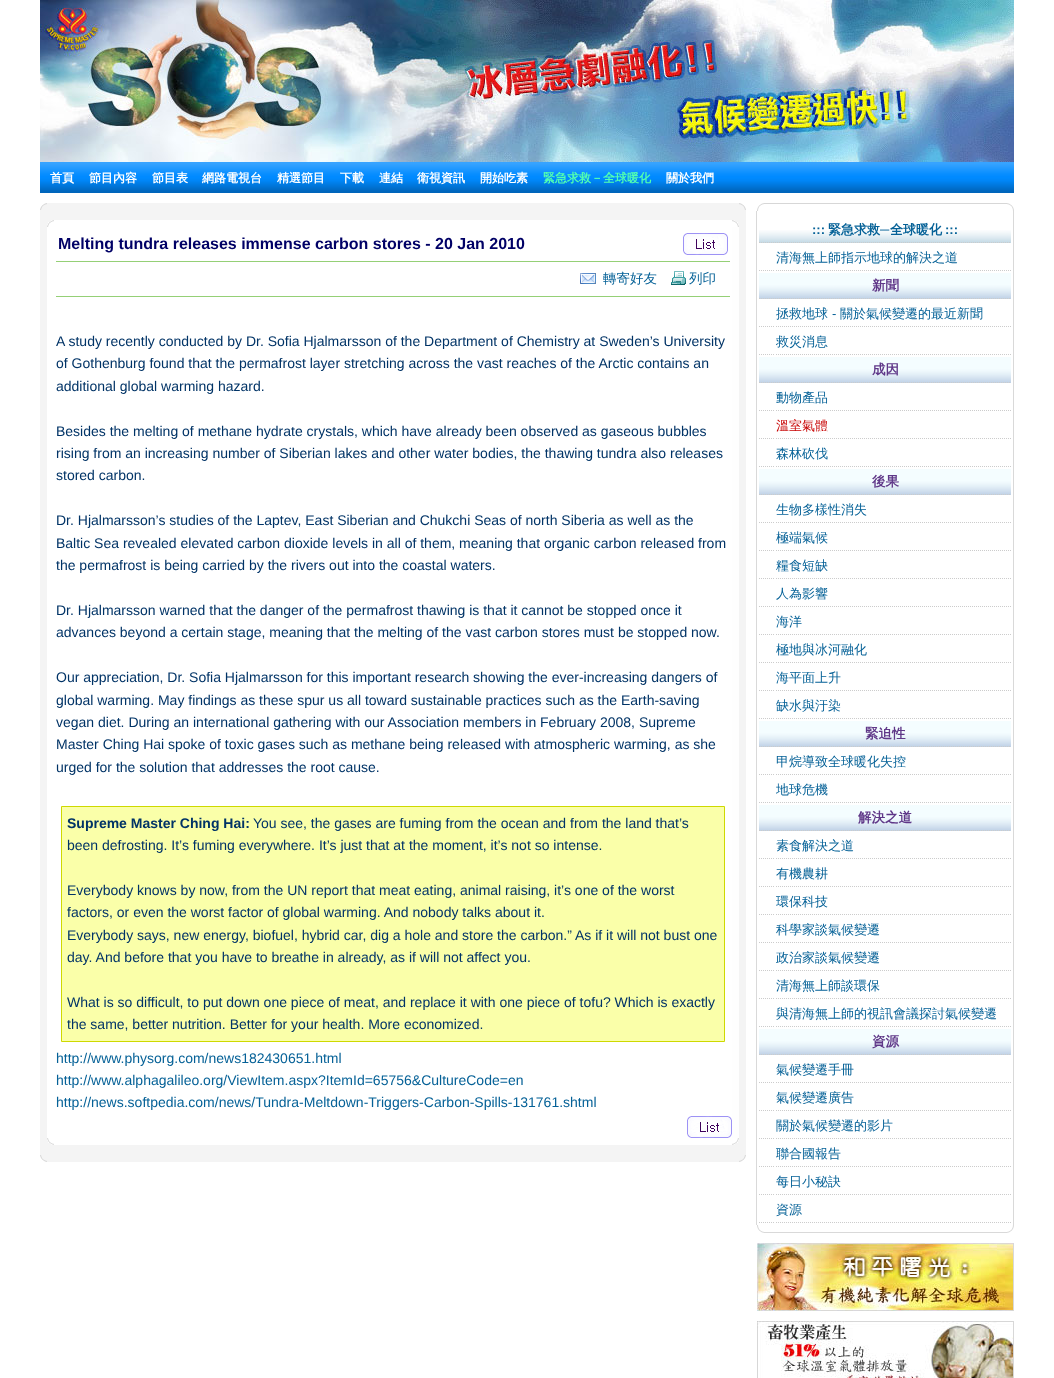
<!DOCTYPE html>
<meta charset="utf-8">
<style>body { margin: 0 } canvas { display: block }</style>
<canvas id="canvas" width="1054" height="1378"></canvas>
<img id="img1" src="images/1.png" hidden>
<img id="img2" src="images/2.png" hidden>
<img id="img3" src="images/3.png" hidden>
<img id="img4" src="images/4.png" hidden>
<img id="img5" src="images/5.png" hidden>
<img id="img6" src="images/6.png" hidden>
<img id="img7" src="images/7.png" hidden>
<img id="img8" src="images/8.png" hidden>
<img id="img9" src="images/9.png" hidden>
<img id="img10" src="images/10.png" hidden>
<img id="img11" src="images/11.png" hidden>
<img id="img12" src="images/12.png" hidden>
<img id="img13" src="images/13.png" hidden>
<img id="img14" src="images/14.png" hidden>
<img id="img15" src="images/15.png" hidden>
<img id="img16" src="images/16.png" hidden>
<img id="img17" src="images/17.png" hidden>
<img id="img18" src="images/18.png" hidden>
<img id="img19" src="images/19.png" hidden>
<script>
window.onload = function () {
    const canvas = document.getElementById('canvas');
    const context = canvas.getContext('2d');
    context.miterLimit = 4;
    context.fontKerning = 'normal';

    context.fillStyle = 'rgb(255, 255, 255)';
    context.fillRect(0, 0, 1054, 1378);
    context.drawImage(document.getElementById('img1'), 40, 0, 974, 162);
    context.drawImage(document.getElementById('img2'), 40, 162, 974, 31);
    context.drawImage(document.getElementById('img3'), 40, 203, 7, 7);
    context.fillStyle = 'rgb(244, 244, 244)';
    context.fillRect(47, 203, 692, 7);
    context.drawImage(document.getElementById('img4'), 739, 203, 7, 7);
    context.fillRect(40, 210, 706, 945);
    context.drawImage(document.getElementById('img5'), 47, 220, 7, 7);
    context.fillStyle = 'rgb(255, 255, 255)';
    context.fillRect(54, 220, 678, 7);
    context.drawImage(document.getElementById('img6'), 732, 220, 7, 7);
    context.fillRect(47, 227, 685, 911);
    context.fillStyle = 'rgb(254, 254, 254)';
    context.fillRect(732, 227, 7, 911);
    context.drawImage(document.getElementById('img7'), 683, 233, 45, 22);
    context.fillStyle = 'rgb(149, 208, 118)';
    context.fillRect(56, 261, 674, 1);
    context.drawImage(document.getElementById('img8'), 580, 273, 16, 11);
    context.drawImage(document.getElementById('img9'), 671, 271, 15, 14);
    context.fillRect(56, 296, 674, 1);
    context.fillStyle = 'rgb(250, 255, 169)';
    context.beginPath();
    context.rect(61.5, 806.5, 663, 235);
    context.fill();
    context.strokeStyle = 'rgb(206, 217, 0)';
    context.stroke();
    context.drawImage(document.getElementById('img7'), 687, 1116, 45, 22);
    context.drawImage(document.getElementById('img10'), 47, 1138, 7, 7);
    context.fillStyle = 'rgb(255, 255, 255)';
    context.fillRect(54, 1138, 678, 7);
    context.drawImage(document.getElementById('img11'), 732, 1138, 7, 7);
    context.drawImage(document.getElementById('img12'), 40, 1155, 7, 7);
    context.fillStyle = 'rgb(244, 244, 244)';
    context.fillRect(47, 1155, 692, 7);
    context.drawImage(document.getElementById('img13'), 739, 1155, 7, 7);
    context.drawImage(document.getElementById('img14'), 757, 203, 257, 8);
    context.fillStyle = 'rgb(217, 217, 217)';
    context.fillRect(1013, 211, 1, 1014);
    context.fillRect(756, 211, 1, 1014);
    context.drawImage(document.getElementById('img15'), 759, 230, 252, 13);
    context.beginPath();
    context.moveTo(759, 242.5);
    context.lineTo(1011, 242.5);
    context.strokeStyle = 'rgb(204, 204, 204)';
    context.setLineDash([1, 1]);
    context.stroke();
    context.beginPath();
    context.moveTo(776, 270.5);
    context.lineTo(1011, 270.5);
    context.stroke();
    context.beginPath();
    context.moveTo(759, 270.5);
    context.lineTo(774, 270.5);
    context.stroke();
    context.drawImage(document.getElementById('img16'), 759, 273, 252, 26);
    context.beginPath();
    context.moveTo(759, 298.5);
    context.lineTo(1011, 298.5);
    context.stroke();
    context.beginPath();
    context.moveTo(776, 326.5);
    context.lineTo(1011, 326.5);
    context.stroke();
    context.beginPath();
    context.moveTo(759, 326.5);
    context.lineTo(774, 326.5);
    context.stroke();
    context.beginPath();
    context.moveTo(776, 354.5);
    context.lineTo(1011, 354.5);
    context.stroke();
    context.beginPath();
    context.moveTo(759, 354.5);
    context.lineTo(774, 354.5);
    context.stroke();
    context.drawImage(document.getElementById('img16'), 759, 357, 252, 26);
    context.beginPath();
    context.moveTo(759, 382.5);
    context.lineTo(1011, 382.5);
    context.stroke();
    context.beginPath();
    context.moveTo(776, 410.5);
    context.lineTo(1011, 410.5);
    context.stroke();
    context.beginPath();
    context.moveTo(759, 410.5);
    context.lineTo(774, 410.5);
    context.stroke();
    context.beginPath();
    context.moveTo(776, 438.5);
    context.lineTo(1011, 438.5);
    context.stroke();
    context.beginPath();
    context.moveTo(759, 438.5);
    context.lineTo(774, 438.5);
    context.stroke();
    context.beginPath();
    context.moveTo(776, 466.5);
    context.lineTo(1011, 466.5);
    context.stroke();
    context.beginPath();
    context.moveTo(759, 466.5);
    context.lineTo(774, 466.5);
    context.stroke();
    context.drawImage(document.getElementById('img16'), 759, 469, 252, 26);
    context.beginPath();
    context.moveTo(759, 494.5);
    context.lineTo(1011, 494.5);
    context.stroke();
    context.beginPath();
    context.moveTo(776, 522.5);
    context.lineTo(1011, 522.5);
    context.stroke();
    context.beginPath();
    context.moveTo(759, 522.5);
    context.lineTo(774, 522.5);
    context.stroke();
    context.beginPath();
    context.moveTo(776, 550.5);
    context.lineTo(1011, 550.5);
    context.stroke();
    context.beginPath();
    context.moveTo(759, 550.5);
    context.lineTo(774, 550.5);
    context.stroke();
    context.beginPath();
    context.moveTo(776, 578.5);
    context.lineTo(1011, 578.5);
    context.stroke();
    context.beginPath();
    context.moveTo(759, 578.5);
    context.lineTo(774, 578.5);
    context.stroke();
    context.beginPath();
    context.moveTo(776, 606.5);
    context.lineTo(1011, 606.5);
    context.stroke();
    context.beginPath();
    context.moveTo(759, 606.5);
    context.lineTo(774, 606.5);
    context.stroke();
    context.beginPath();
    context.moveTo(776, 634.5);
    context.lineTo(1011, 634.5);
    context.stroke();
    context.beginPath();
    context.moveTo(759, 634.5);
    context.lineTo(774, 634.5);
    context.stroke();
    context.beginPath();
    context.moveTo(776, 662.5);
    context.lineTo(1011, 662.5);
    context.stroke();
    context.beginPath();
    context.moveTo(759, 662.5);
    context.lineTo(774, 662.5);
    context.stroke();
    context.beginPath();
    context.moveTo(776, 690.5);
    context.lineTo(1011, 690.5);
    context.stroke();
    context.beginPath();
    context.moveTo(759, 690.5);
    context.lineTo(774, 690.5);
    context.stroke();
    context.beginPath();
    context.moveTo(776, 718.5);
    context.lineTo(1011, 718.5);
    context.stroke();
    context.beginPath();
    context.moveTo(759, 718.5);
    context.lineTo(774, 718.5);
    context.stroke();
    context.drawImage(document.getElementById('img16'), 759, 721, 252, 26);
    context.beginPath();
    context.moveTo(759, 746.5);
    context.lineTo(1011, 746.5);
    context.stroke();
    context.beginPath();
    context.moveTo(776, 774.5);
    context.lineTo(1011, 774.5);
    context.stroke();
    context.beginPath();
    context.moveTo(759, 774.5);
    context.lineTo(774, 774.5);
    context.stroke();
    context.beginPath();
    context.moveTo(776, 802.5);
    context.lineTo(1011, 802.5);
    context.stroke();
    context.beginPath();
    context.moveTo(759, 802.5);
    context.lineTo(774, 802.5);
    context.stroke();
    context.drawImage(document.getElementById('img16'), 759, 805, 252, 26);
    context.beginPath();
    context.moveTo(759, 830.5);
    context.lineTo(1011, 830.5);
    context.stroke();
    context.beginPath();
    context.moveTo(776, 858.5);
    context.lineTo(1011, 858.5);
    context.stroke();
    context.beginPath();
    context.moveTo(759, 858.5);
    context.lineTo(774, 858.5);
    context.stroke();
    context.beginPath();
    context.moveTo(776, 886.5);
    context.lineTo(1011, 886.5);
    context.stroke();
    context.beginPath();
    context.moveTo(759, 886.5);
    context.lineTo(774, 886.5);
    context.stroke();
    context.beginPath();
    context.moveTo(776, 914.5);
    context.lineTo(1011, 914.5);
    context.stroke();
    context.beginPath();
    context.moveTo(759, 914.5);
    context.lineTo(774, 914.5);
    context.stroke();
    context.beginPath();
    context.moveTo(776, 942.5);
    context.lineTo(1011, 942.5);
    context.stroke();
    context.beginPath();
    context.moveTo(759, 942.5);
    context.lineTo(774, 942.5);
    context.stroke();
    context.beginPath();
    context.moveTo(776, 970.5);
    context.lineTo(1011, 970.5);
    context.stroke();
    context.beginPath();
    context.moveTo(759, 970.5);
    context.lineTo(774, 970.5);
    context.stroke();
    context.beginPath();
    context.moveTo(776, 998.5);
    context.lineTo(1011, 998.5);
    context.stroke();
    context.beginPath();
    context.moveTo(759, 998.5);
    context.lineTo(774, 998.5);
    context.stroke();
    context.beginPath();
    context.moveTo(776, 1026.5);
    context.lineTo(1011, 1026.5);
    context.stroke();
    context.beginPath();
    context.moveTo(759, 1026.5);
    context.lineTo(774, 1026.5);
    context.stroke();
    context.drawImage(document.getElementById('img16'), 759, 1029, 252, 26);
    context.beginPath();
    context.moveTo(759, 1054.5);
    context.lineTo(1011, 1054.5);
    context.stroke();
    context.beginPath();
    context.moveTo(776, 1082.5);
    context.lineTo(1011, 1082.5);
    context.stroke();
    context.beginPath();
    context.moveTo(759, 1082.5);
    context.lineTo(774, 1082.5);
    context.stroke();
    context.beginPath();
    context.moveTo(776, 1110.5);
    context.lineTo(1011, 1110.5);
    context.stroke();
    context.beginPath();
    context.moveTo(759, 1110.5);
    context.lineTo(774, 1110.5);
    context.stroke();
    context.beginPath();
    context.moveTo(776, 1138.5);
    context.lineTo(1011, 1138.5);
    context.stroke();
    context.beginPath();
    context.moveTo(759, 1138.5);
    context.lineTo(774, 1138.5);
    context.stroke();
    context.beginPath();
    context.moveTo(776, 1166.5);
    context.lineTo(1011, 1166.5);
    context.stroke();
    context.beginPath();
    context.moveTo(759, 1166.5);
    context.lineTo(774, 1166.5);
    context.stroke();
    context.beginPath();
    context.moveTo(776, 1194.5);
    context.lineTo(1011, 1194.5);
    context.stroke();
    context.beginPath();
    context.moveTo(759, 1194.5);
    context.lineTo(774, 1194.5);
    context.stroke();
    context.beginPath();
    context.moveTo(776, 1222.5);
    context.lineTo(1011, 1222.5);
    context.stroke();
    context.beginPath();
    context.moveTo(759, 1222.5);
    context.lineTo(774, 1222.5);
    context.stroke();
    context.drawImage(document.getElementById('img17'), 757, 1225, 257, 8);
    context.drawImage(document.getElementById('img18'), 757, 1243, 257, 68);
    context.drawImage(document.getElementById('img19'), 757, 1321, 257, 57);
    context.font = 'bold 12px WenQuanYi Zen Hei';
    context.fillStyle = 'rgb(255, 255, 255)';
    context.fillText('首頁', 50, 182);
    context.fillText('節目內容', 89, 182);
    context.fillText('節目表', 152, 182);
    context.fillText('網路電視台', 202, 182);
    context.fillText('精選節目', 277, 182);
    context.fillText('下載', 340, 182);
    context.fillText('連結', 379, 182);
    context.fillText('衛視資訊', 417, 182);
    context.fillText('開始吃素', 480, 182);
    context.fillStyle = 'rgb(83, 255, 176)';
    context.fillText('緊急求救－全球暖化', 543, 182);
    context.fillStyle = 'rgb(255, 255, 255)';
    context.fillText('關於我們', 666, 182);
    context.font = 'bold 16px Liberation Sans';
    context.fillStyle = 'rgb(0, 0, 102)';
    context.fillText('Melting tundra releases immense carbon stores - 20 Jan 2010', 58, 249);
    context.font = '500 13.5px WenQuanYi Zen Hei';
    context.fillStyle = 'rgb(5, 97, 151)';
    context.fillText('轉寄好友', 603, 283);
    context.fillText('列印', 689, 283);
    context.font = '14px Liberation Sans';
    context.fillStyle = 'rgb(0, 51, 102)';
    context.fillText('A study recently conducted by Dr. Sofia Hjalmarsson of the Department of Chemistry at Sweden’s University', 56, 346);
    context.fillText('of Gothenburg found that the permafrost layer stretching across the vast reaches of the Arctic contains an', 56, 368);
    context.fillText('additional global warming hazard.', 56, 391);
    context.fillText('Besides the melting of methane hydrate crystals, which have already been observed as gaseous bubbles', 56, 436);
    context.fillText('rising from an increasing number of Siberian lakes and other water bodies, the thawing tundra also releases', 56, 458);
    context.fillText('stored carbon.', 56, 480);
    context.fillText('Dr. Hjalmarsson’s studies of the Laptev, East Siberian and Chukchi Seas of north Siberia as well as the', 56, 525);
    context.fillText('Baltic Sea revealed elevated carbon dioxide levels in all of them, meaning that organic carbon released from', 56, 548);
    context.fillText('the permafrost is being carried by the rivers out into the coastal waters.', 56, 570);
    context.fillText('Dr. Hjalmarsson warned that the danger of the permafrost thawing is that it cannot be stopped once it', 56, 615);
    context.fillText('advances beyond a certain stage, meaning that the melting of the vast carbon stores must be stopped now.', 56, 637);
    context.fillText('Our appreciation, Dr. Sofia Hjalmarsson for this important research showing the ever-increasing dangers of', 56, 682);
    context.fillText('global warming. May findings as these spur us all toward sustainable practices such as the Earth-saving', 56, 705);
    context.fillText('vegan diet. During an international gathering with our Association members in February 2008, Supreme', 56, 727);
    context.fillText('Master Ching Hai spoke of toxic gases such as methane being released with atmospheric warming, as she', 56, 749);
    context.fillText('urged for the solution that addresses the root cause.', 56, 772);
    context.font = 'bold 14px Liberation Sans';
    context.fillText('Supreme Master Ching Hai:', 67, 828);
    context.font = '14px Liberation Sans';
    context.fillText('You see, the gases are fuming from the ocean and from the land that’s', 253, 828);
    context.fillText('been defrosting. It’s fuming everywhere. It’s just that at the moment, it’s not so intense.', 67, 850);
    context.fillText('Everybody knows by now, from the UN report that meat eating, animal raising, it’s one of the worst', 67, 895);
    context.fillText('factors, or even the worst factor of global warming. And nobody talks about it.', 67, 917);
    context.fillText('Everybody says, new energy, biofuel, hybrid car, dig a hole and store the carbon.” As if it will not bust one', 67, 940);
    context.fillText('day. And before that you have to breathe in already, as if will not affect you.', 67, 962);
    context.fillText('What is so difficult, to put down one piece of meat, and replace it with one piece of tofu? Which is exactly', 67, 1007);
    context.fillText('the same, better nutrition. Better for your health. More economized.', 67, 1029);
    context.fillStyle = 'rgb(5, 97, 151)';
    context.fillText('http://www.physorg.com/news182430651.html', 56, 1063);
    context.fillText('http://www.alphagalileo.org/ViewItem.aspx?ItemId=65756&CultureCode=en', 56, 1085);
    context.fillText('http://news.softpedia.com/news/Tundra-Meltdown-Triggers-Carbon-Spills-131761.shtml', 56, 1107);
    context.font = 'bold 13px Liberation Sans';
    context.fillText(':::', 812, 234);
    context.font = 'bold 13px WenQuanYi Zen Hei';
    context.fillText('緊急求救', 828, 234);
    context.font = 'bold 13px Liberation Sans';
    context.fillText('─', 880, 234);
    context.font = 'bold 13px WenQuanYi Zen Hei';
    context.fillText('全球暖化', 890, 234);
    context.font = 'bold 13px Liberation Sans';
    context.fillText(':::', 945, 234);
    context.font = '500 13px WenQuanYi Zen Hei';
    context.fillText('清海無上師指示地球的解決之道', 776, 262);
    context.font = 'bold 13.5px WenQuanYi Zen Hei';
    context.fillStyle = 'rgb(95, 55, 136)';
    context.fillText('新聞', 872, 290);
    context.font = '500 13px WenQuanYi Zen Hei';
    context.fillStyle = 'rgb(5, 97, 151)';
    context.fillText('拯救地球', 776, 318);
    context.font = '13px Liberation Sans';
    context.fillText('-', 832, 318);
    context.font = '500 13px WenQuanYi Zen Hei';
    context.fillText('關於氣候變遷的最近新聞', 840, 318);
    context.fillText('救災消息', 776, 346);
    context.font = 'bold 13.5px WenQuanYi Zen Hei';
    context.fillStyle = 'rgb(95, 55, 136)';
    context.fillText('成因', 872, 374);
    context.font = '500 13px WenQuanYi Zen Hei';
    context.fillStyle = 'rgb(5, 97, 151)';
    context.fillText('動物產品', 776, 402);
    context.fillStyle = 'rgb(199, 0, 0)';
    context.fillText('溫室氣體', 776, 430);
    context.fillStyle = 'rgb(5, 97, 151)';
    context.fillText('森林砍伐', 776, 458);
    context.font = 'bold 13.5px WenQuanYi Zen Hei';
    context.fillStyle = 'rgb(95, 55, 136)';
    context.fillText('後果', 872, 486);
    context.font = '500 13px WenQuanYi Zen Hei';
    context.fillStyle = 'rgb(5, 97, 151)';
    context.fillText('生物多樣性消失', 776, 514);
    context.fillText('極端氣候', 776, 542);
    context.fillText('糧食短缺', 776, 570);
    context.fillText('人為影響', 776, 598);
    context.fillText('海洋', 776, 626);
    context.fillText('極地與冰河融化', 776, 654);
    context.fillText('海平面上升', 776, 682);
    context.fillText('缺水與汙染', 776, 710);
    context.font = 'bold 13.5px WenQuanYi Zen Hei';
    context.fillStyle = 'rgb(95, 55, 136)';
    context.fillText('緊迫性', 865, 738);
    context.font = '500 13px WenQuanYi Zen Hei';
    context.fillStyle = 'rgb(5, 97, 151)';
    context.fillText('甲烷導致全球暖化失控', 776, 766);
    context.fillText('地球危機', 776, 794);
    context.font = 'bold 13.5px WenQuanYi Zen Hei';
    context.fillStyle = 'rgb(95, 55, 136)';
    context.fillText('解決之道', 858, 822);
    context.font = '500 13px WenQuanYi Zen Hei';
    context.fillStyle = 'rgb(5, 97, 151)';
    context.fillText('素食解決之道', 776, 850);
    context.fillText('有機農耕', 776, 878);
    context.fillText('環保科技', 776, 906);
    context.fillText('科學家談氣候變遷', 776, 934);
    context.fillText('政治家談氣候變遷', 776, 962);
    context.fillText('清海無上師談環保', 776, 990);
    context.fillText('與清海無上師的視訊會議探討氣候變遷', 776, 1018);
    context.font = 'bold 13.5px WenQuanYi Zen Hei';
    context.fillStyle = 'rgb(95, 55, 136)';
    context.fillText('資源', 872, 1046);
    context.font = '500 13px WenQuanYi Zen Hei';
    context.fillStyle = 'rgb(5, 97, 151)';
    context.fillText('氣候變遷手冊', 776, 1074);
    context.fillText('氣候變遷廣告', 776, 1102);
    context.fillText('關於氣候變遷的影片', 776, 1130);
    context.fillText('聯合國報告', 776, 1158);
    context.fillText('每日小秘訣', 776, 1186);
    context.fillText('資源', 776, 1214);
};
</script>
